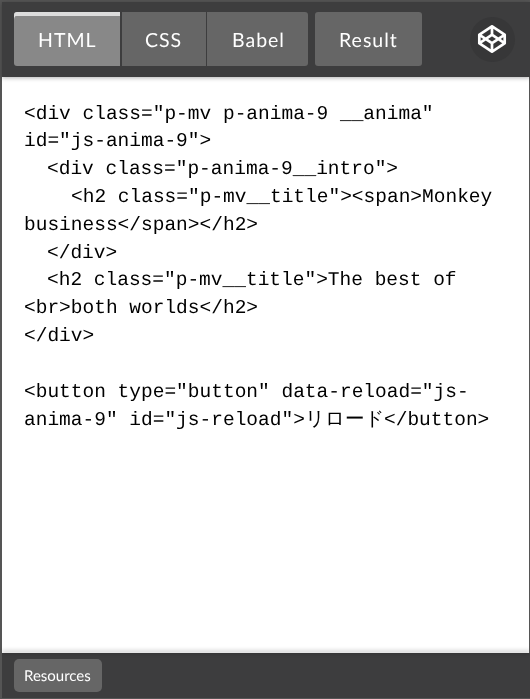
<!DOCTYPE html>
<meta charset="utf-8">
<style>body { margin: 0 } canvas { display: block }</style>
<canvas id="canvas" width="530" height="699"></canvas>
<img id="img1" src="images/1.png" hidden>
<script>
window.onload = function () {
    const canvas = document.getElementById('canvas');
    const context = canvas.getContext('2d');
    context.miterLimit = 4;
    context.fontKerning = 'normal';

    context.fillStyle = 'rgb(255, 255, 255)';
    context.fillRect(0, 0, 530, 699);
    context.strokeStyle = 'rgb(85, 85, 85)';
    context.lineWidth = 2;
    context.strokeRect(1, 1, 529, 697);
    context.fillStyle = 'rgba(0, 0, 0, 0.3)';
    context.filter = 'blur(2px)';
    context.beginPath();
    context.rect(2, 3, 528, 75);
    context.fill();
    context.filter = 'none';
    context.fillStyle = 'rgb(61, 61, 62)';
    context.fillRect(2, 2, 528, 75);
    context.fillStyle = 'rgb(136, 136, 136)';
    context.beginPath();
    context.roundRect(14, 12, 106, 54, [3, 0, 0, 3]);
    context.fill();
    context.fillStyle = 'rgb(221, 221, 221)';
    context.beginPath();
    context.moveTo(16, 16);
    context.lineTo(120, 16);
    context.lineTo(120, 12);
    context.lineTo(17, 12);
    context.bezierCurveTo(15, 12, 14, 13, 14, 15);
    context.lineTo(14, 20);
    context.bezierCurveTo(14, 18, 15, 16, 16, 16);
    context.closePath();
    context.fill();
    context.fillStyle = 'rgb(102, 102, 102)';
    context.fillRect(122, 12, 84, 54);
    context.beginPath();
    context.roundRect(207, 12, 101, 54, [0, 3, 3, 0]);
    context.fill();
    context.beginPath();
    context.roundRect(315, 12, 107, 54, 3);
    context.fill();
    context.fillStyle = 'rgb(55, 55, 56)';
    context.beginPath();
    context.arc(492.5, 39.5, 22.5, 0, 2 * Math.PI);
    context.fill();
    context.drawImage(document.getElementById('img1'), 477, 25, 30, 28);
    context.fillStyle = 'rgb(61, 61, 62)';
    context.fillRect(2, 653, 528, 45);
    context.fillStyle = 'rgb(102, 102, 102)';
    context.beginPath();
    context.roundRect(14, 659, 88, 33, 5);
    context.fill();
    context.fillStyle = 'rgba(0, 0, 0, 0.3)';
    context.filter = 'blur(2px)';
    context.beginPath();
    context.rect(2, 651, 528, 2);
    context.fill();
    context.filter = 'none';
    context.letterSpacing = '1px';
    context.font = '19.5px Lato';
    context.fillStyle = 'rgb(255, 255, 255)';
    context.fillText('HTML', 38, 47);
    context.fillText('CSS', 145, 47);
    context.fillText('Babel', 232, 47);
    context.fillText('Result', 339, 47);
    context.letterSpacing = '0px';
    context.font = '19.5px Liberation Mono';
    context.fillStyle = 'rgb(0, 0, 0)';
    context.fillText('<div class="p-mv p-anima-9 __anima"', 24, 119);
    context.fillText('id="js-anima-9">', 24, 146);
    context.fillText('<div class="p-anima-9__intro">', 47, 174);
    context.fillText('<h2 class="p-mv__title"><span>Monkey', 71, 202);
    context.fillText('business<\/span><\/h2>', 24, 230);
    context.fillText('<\/div>', 47, 258);
    context.fillText('<h2 class="p-mv__title">The best of', 47, 285);
    context.fillText('<br>both worlds<\/h2>', 24, 313);
    context.fillText('<\/div>', 24, 341);
    context.fillText('<button type="button" data-reload="js-', 24, 397);
    context.fillText('anima-9" id="js-reload">', 24, 425);
    context.font = '500 19.5px WenQuanYi Zen Hei';
    context.fillText('リロード', 305, 425);
    context.font = '19.5px Liberation Mono';
    context.fillText('<\/button>', 384, 425);
    context.font = '15px Lato';
    context.fillStyle = 'rgb(255, 255, 255)';
    context.fillText('Resources', 24, 681);
};
</script>
